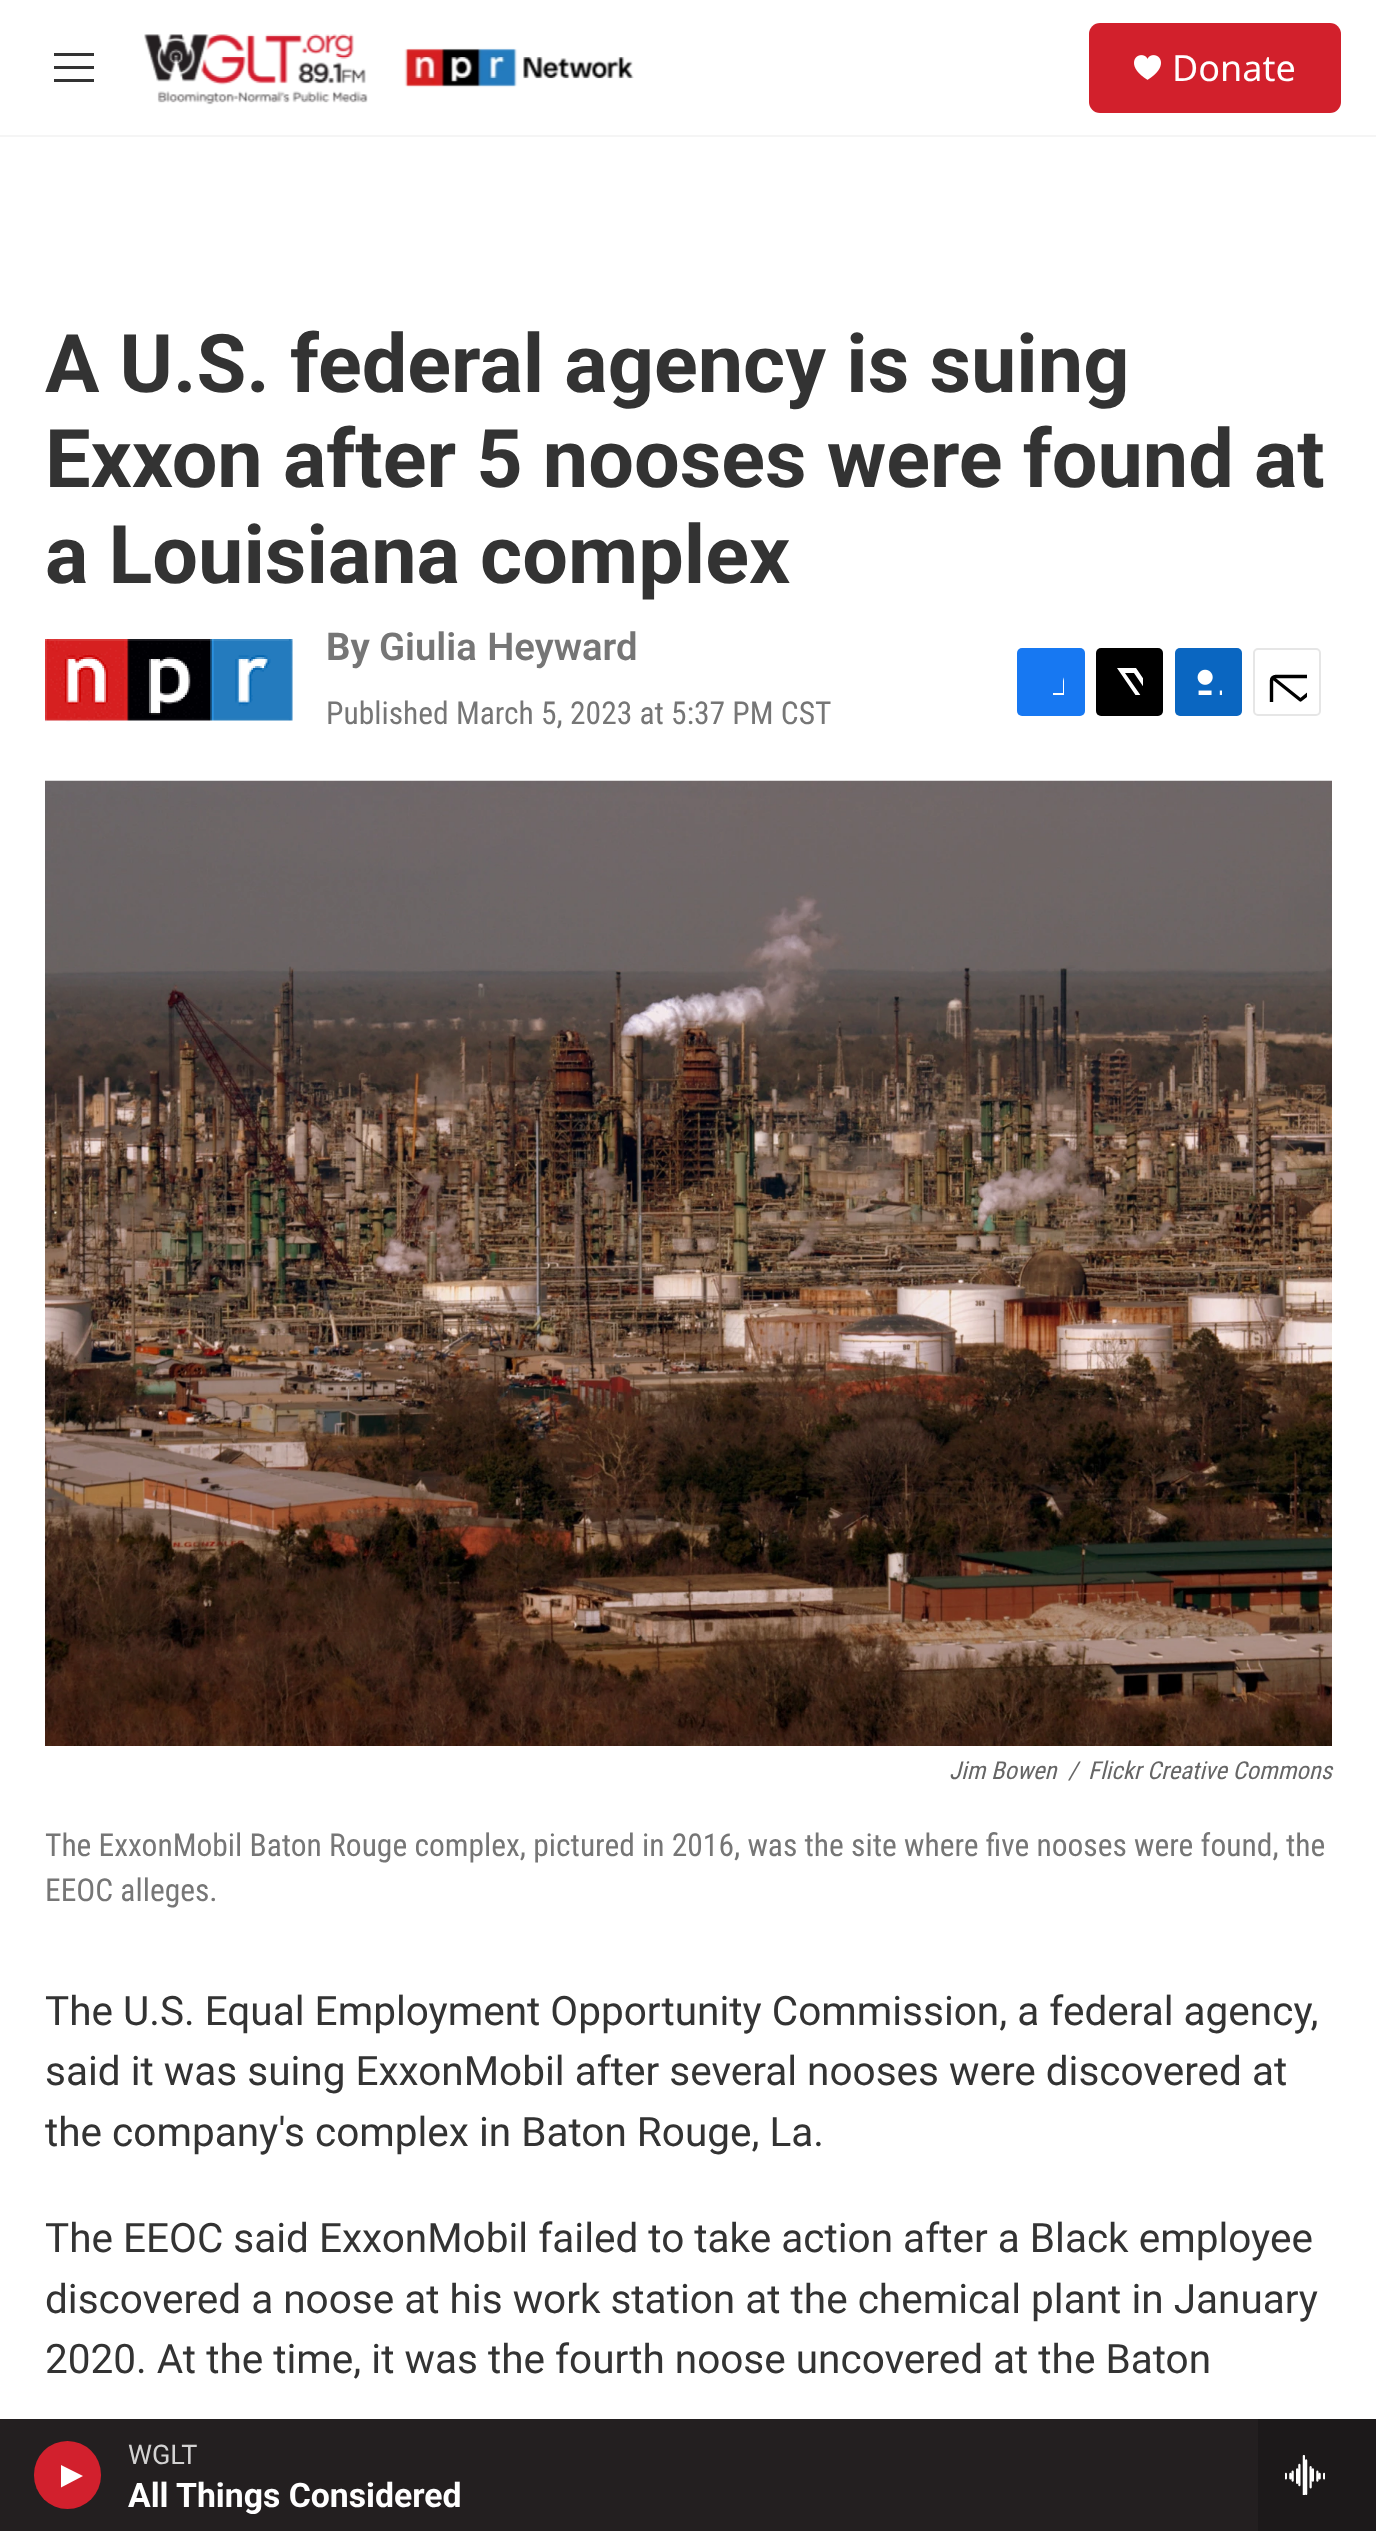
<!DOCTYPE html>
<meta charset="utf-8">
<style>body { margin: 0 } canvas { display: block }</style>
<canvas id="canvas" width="1376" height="2531"></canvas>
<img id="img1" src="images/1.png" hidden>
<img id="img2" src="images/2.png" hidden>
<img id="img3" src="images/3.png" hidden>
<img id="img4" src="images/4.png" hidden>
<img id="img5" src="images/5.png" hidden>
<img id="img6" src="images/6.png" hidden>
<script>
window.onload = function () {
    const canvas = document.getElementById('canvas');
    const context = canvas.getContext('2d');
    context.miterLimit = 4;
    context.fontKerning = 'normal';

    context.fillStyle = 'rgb(255, 255, 255)';
    context.fillRect(0, 0, 1376, 2531);
    context.fillStyle = 'rgb(245, 245, 245)';
    context.fillRect(0, 135, 1376, 2);
    context.fillStyle = 'rgb(51, 51, 51)';
    context.beginPath();
    context.moveTo(54, 69);
    context.lineTo(54, 66);
    context.lineTo(94, 66);
    context.lineTo(94, 69);
    context.closePath();
    context.moveTo(54, 56);
    context.lineTo(54, 53);
    context.lineTo(94, 53);
    context.lineTo(94, 56);
    context.closePath();
    context.moveTo(54, 82);
    context.lineTo(54, 79);
    context.lineTo(94, 79);
    context.lineTo(94, 82);
    context.closePath();
    context.fill('evenodd');
    context.drawImage(document.getElementById('img1'), 144, 34, 490, 71);
    context.fillStyle = 'rgb(210, 32, 44)';
    context.beginPath();
    context.roundRect(1089, 23, 252, 90, 11);
    context.fill();
    context.drawImage(document.getElementById('img2'), 1134, 55, 27, 25);
    context.fillStyle = 'rgb(35, 31, 32)';
    context.fillRect(0, 2419, 1258, 112);
    context.fillStyle = 'rgb(210, 32, 45)';
    context.beginPath();
    context.roundRect(34, 2441, 67, 68, 33.5);
    context.fill();
    context.fillStyle = 'rgb(255, 255, 255)';
    context.beginPath();
    context.moveTo(61, 2465);
    context.lineTo(83, 2476);
    context.lineTo(61, 2487.5);
    context.closePath();
    context.fill();
    context.fillStyle = 'rgb(28, 25, 26)';
    context.fillRect(1258, 2419, 118, 112);
    context.drawImage(document.getElementById('img3'), 1285, 2455, 40, 40);
    context.drawImage(document.getElementById('img4'), 45, 639, 248, 83);
    context.fillStyle = 'rgb(23, 120, 242)';
    context.beginPath();
    context.roundRect(1017, 648, 68, 68, 5);
    context.fill();
    context.save();
    context.beginPath();
    context.rect(1037, 668, 27, 27);
    context.clip();
    context.fillStyle = 'rgb(255, 255, 255)';
    context.beginPath();
    context.moveTo(1075, 716);
    context.lineTo(1063, 716);
    context.lineTo(1063, 704);
    context.lineTo(1053, 704);
    context.lineTo(1053, 693);
    context.lineTo(1063, 693);
    context.lineTo(1063, 681);
    context.bezierCurveTo(1065, 669, 1076, 668, 1085, 670);
    context.lineTo(1085, 680);
    context.bezierCurveTo(1073, 680, 1075, 682, 1075, 693);
    context.lineTo(1085, 693);
    context.lineTo(1084, 704);
    context.lineTo(1075, 704);
    context.closePath();
    context.fill();
    context.restore();
    context.fillStyle = 'rgb(0, 0, 0)';
    context.beginPath();
    context.roundRect(1096, 648, 67, 68, 5);
    context.fill();
    context.save();
    context.beginPath();
    context.rect(1116, 668, 27, 27);
    context.clip();
    context.fillStyle = 'rgb(255, 255, 255)';
    context.beginPath();
    context.moveTo(1156, 697);
    context.lineTo(1163, 707);
    context.bezierCurveTo(1163, 709, 1163, 712, 1162, 714);
    context.lineTo(1134, 673);
    context.lineTo(1125, 673);
    context.lineTo(1155, 716);
    context.lineTo(1149, 716);
    context.lineTo(1145, 710);
    context.lineTo(1140, 716);
    context.lineTo(1134, 716);
    context.lineTo(1143, 706);
    context.lineTo(1117, 668);
    context.lineTo(1136, 668);
    context.lineTo(1153, 693);
    context.lineTo(1163, 682);
    context.lineTo(1163, 689);
    context.closePath();
    context.fill();
    context.restore();
    context.fillStyle = 'rgb(10, 102, 193)';
    context.beginPath();
    context.roundRect(1175, 648, 67, 68, 5);
    context.fill();
    context.drawImage(document.getElementById('img5'), 1197, 669, 25, 26);
    context.beginPath();
    context.roundRect(1254, 649, 66, 66, 4);
    context.strokeStyle = 'rgb(230, 230, 230)';
    context.lineWidth = 2;
    context.stroke();
    context.save();
    context.beginPath();
    context.rect(1267, 662, 40, 40);
    context.clip();
    context.beginPath();
    context.moveTo(1329.5, 711);
    context.bezierCurveTo(1329.5, 713, 1327.5, 715, 1325.5, 715);
    context.lineTo(1275.5, 715);
    context.bezierCurveTo(1273.5, 715, 1271.5, 713, 1271.5, 711);
    context.lineTo(1271.5, 680.5);
    context.bezierCurveTo(1271.5, 678, 1273.5, 676.5, 1275.5, 676.5);
    context.lineTo(1325.5, 676.5);
    context.bezierCurveTo(1327.5, 676.5, 1329.5, 678, 1329.5, 680.5);
    context.closePath();
    context.moveTo(1328, 678);
    context.lineTo(1300.5, 700);
    context.lineTo(1273, 678);
    context.strokeStyle = 'rgb(0, 0, 0)';
    context.lineWidth = 3.4;
    context.lineCap = 'round';
    context.lineJoin = 'round';
    context.stroke();
    context.restore();
    context.drawImage(document.getElementById('img6'), 45, 780, 1287, 966);
    context.font = '36px Noto Sans';
    context.fillStyle = 'rgb(255, 255, 255)';
    context.fillText('Donate', 1172, 81);
    context.font = '27px Roboto';
    context.fillStyle = 'rgb(211, 210, 210)';
    context.fillText('WGLT', 128, 2464);
    context.font = 'bold 33.75px "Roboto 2"';
    context.fillStyle = 'rgb(255, 255, 255)';
    context.fillText('All Things Considered', 128, 2507);
    context.font = 'bold 81px Roboto';
    context.fillStyle = 'rgb(51, 51, 51)';
    context.fillText('A U.S. federal agency is suing', 45, 392);
    context.fillText('Exxon after 5 nooses were found at', 45, 487);
    context.fillText('a Louisiana complex', 45, 583);
    context.font = 'bold 38.25px Roboto';
    context.fillStyle = 'rgb(118, 118, 118)';
    context.fillText('By', 326, 660);
    context.wordSpacing = '1px';
    context.font = '600 38.25px Roboto';
    context.fillText('Giulia Heyward', 379, 660);
    context.wordSpacing = '0px';
    context.font = '31.5px Roboto Condensed';
    context.fillText('Published March 5, 2023 at 5:37 PM CST', 326, 724);
    context.font = 'italic 24.75px Roboto Condensed';
    context.fillStyle = 'rgb(102, 102, 102)';
    context.fillText('Jim Bowen', 949, 1779);
    context.fillText('/', 1068, 1779);
    context.fillText('Flickr Creative Commons', 1088, 1779);
    context.font = '31.5px Roboto Condensed';
    context.fillStyle = 'rgb(118, 118, 118)';
    context.fillText('The ExxonMobil Baton Rouge complex, pictured in 2016, was the site where five nooses were found, the', 45, 1856);
    context.fillText('EEOC alleges.', 45, 1901);
    context.font = '40.5px Roboto';
    context.fillStyle = 'rgb(51, 51, 51)';
    context.fillText('The U.S. Equal Employment Opportunity Commission, a federal agency,', 45, 2025);
    context.fillText('said it was suing ExxonMobil after several nooses were discovered at', 45, 2085);
    context.fillText('the company\'s complex in Baton Rouge, La.', 45, 2146);
    context.fillText('The EEOC said ExxonMobil failed to take action after a Black employee', 45, 2252);
    context.fillText('discovered a noose at his work station at the chemical plant in January', 45, 2313);
    context.fillText('2020. At the time, it was the fourth noose uncovered at the Baton', 45, 2373);
};
</script>
